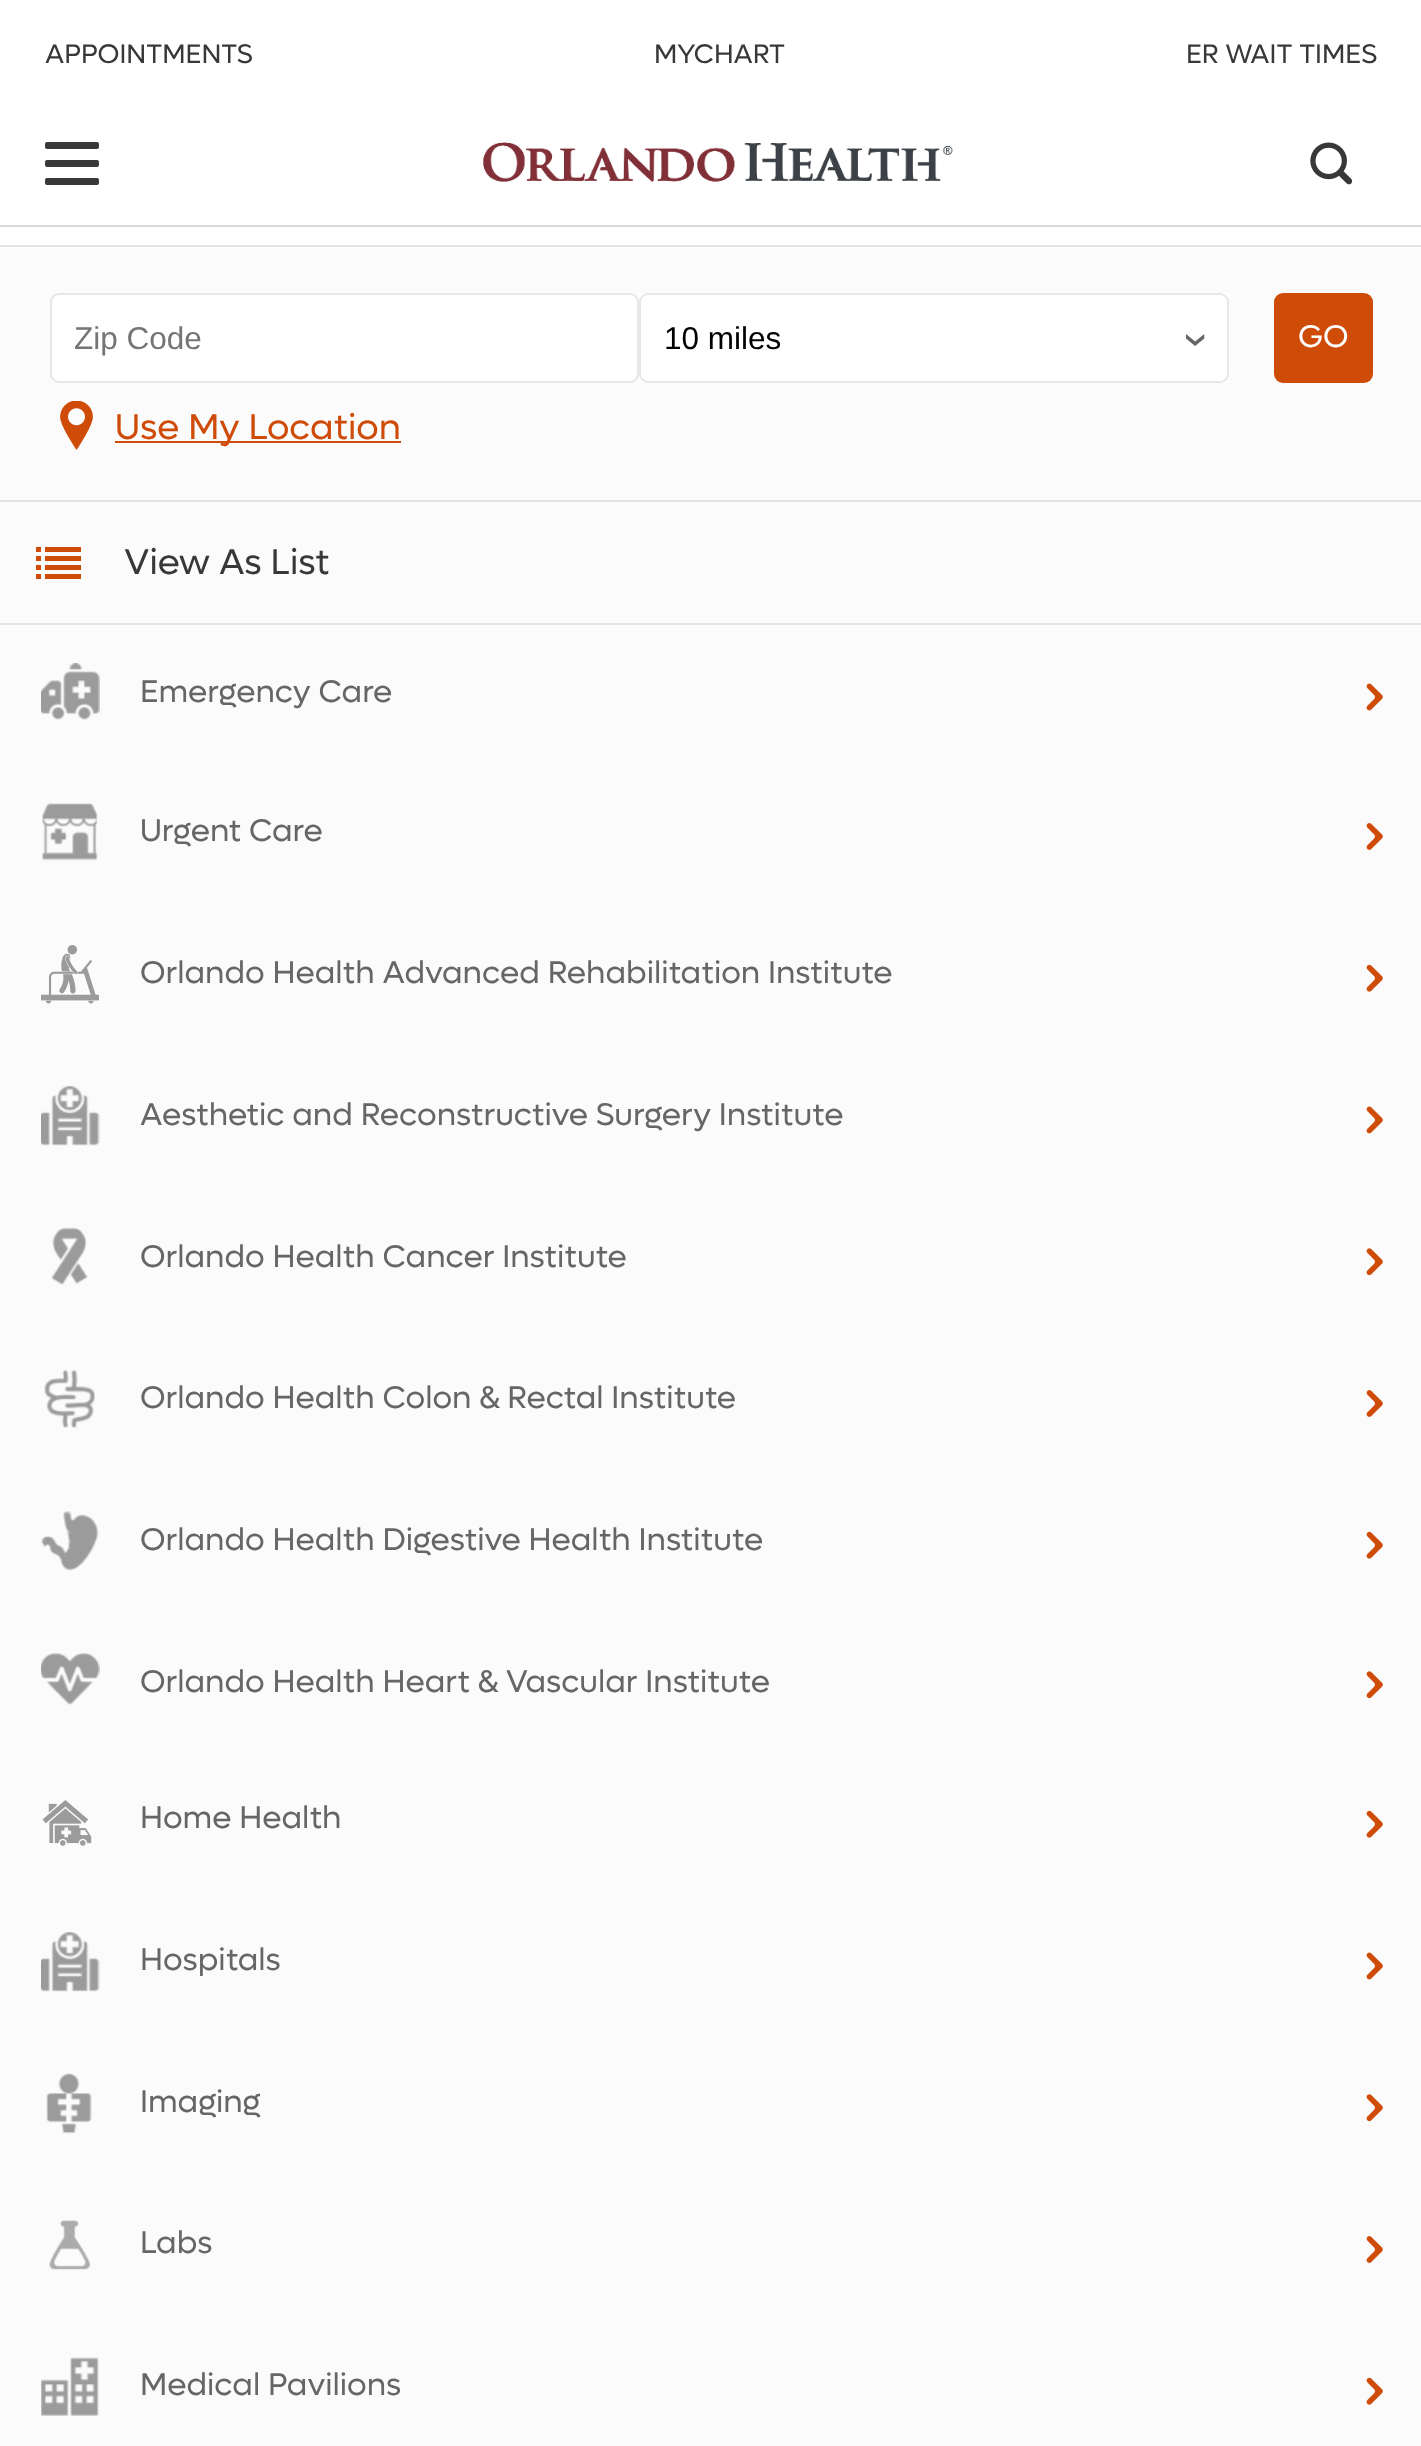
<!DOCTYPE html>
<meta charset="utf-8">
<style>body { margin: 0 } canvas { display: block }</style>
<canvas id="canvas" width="1421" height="2446"></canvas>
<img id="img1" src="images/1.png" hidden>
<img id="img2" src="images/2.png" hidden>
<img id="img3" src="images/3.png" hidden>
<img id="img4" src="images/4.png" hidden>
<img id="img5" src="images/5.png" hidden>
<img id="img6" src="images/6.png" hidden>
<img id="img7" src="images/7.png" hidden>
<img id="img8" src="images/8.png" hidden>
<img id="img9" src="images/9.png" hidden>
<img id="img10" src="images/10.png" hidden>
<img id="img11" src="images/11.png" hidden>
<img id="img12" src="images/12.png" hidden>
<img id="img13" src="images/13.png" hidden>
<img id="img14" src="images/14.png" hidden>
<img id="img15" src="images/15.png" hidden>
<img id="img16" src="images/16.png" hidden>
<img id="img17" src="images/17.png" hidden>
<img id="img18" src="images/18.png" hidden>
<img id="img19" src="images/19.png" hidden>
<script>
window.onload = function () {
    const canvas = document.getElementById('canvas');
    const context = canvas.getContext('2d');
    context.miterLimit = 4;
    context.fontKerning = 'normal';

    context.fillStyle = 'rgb(251, 251, 251)';
    context.fillRect(0, 0, 1421, 2446);
    context.fillStyle = 'rgb(255, 255, 255)';
    context.fillRect(0, 0, 1421, 225);
    context.fillStyle = 'rgb(217, 217, 217)';
    context.fillRect(0, 225, 1421, 2);
    context.fillStyle = 'rgb(57, 56, 57)';
    context.beginPath();
    context.roundRect(45, 160, 54, 7, 2);
    context.fill();
    context.beginPath();
    context.roundRect(45, 142, 54, 7, 2);
    context.fill();
    context.beginPath();
    context.roundRect(45, 178, 54, 7, 2);
    context.fill();
    context.drawImage(document.getElementById('img1'), 483, 142, 470, 40);
    context.drawImage(document.getElementById('img2'), 1310, 142, 43, 43);
    context.fillStyle = 'rgb(255, 255, 255)';
    context.fillRect(0, 227, 1421, 21);
    context.fillStyle = 'rgb(228, 228, 228)';
    context.fillRect(0, 245, 1421, 2);
    context.fillRect(0, 500, 1421, 2);
    context.fillStyle = 'rgb(255, 255, 255)';
    context.beginPath();
    context.roundRect(51, 294, 587, 88, 8);
    context.fill();
    context.strokeStyle = 'rgb(230, 231, 231)';
    context.lineWidth = 2;
    context.stroke();
    context.fillRect(639, 293, 590, 90);
    context.beginPath();
    context.roundRect(640, 294, 588, 88, 8);
    context.stroke();
    context.fillStyle = 'rgb(207, 75, 8)';
    context.beginPath();
    context.roundRect(1274, 293, 99, 90, 9);
    context.fill();
    context.drawImage(document.getElementById('img3'), 60, 401, 33, 49);
    context.fillRect(115, 441, 286, 2);
    context.fillStyle = 'rgb(228, 228, 228)';
    context.fillRect(0, 623, 1421, 2);
    context.fillStyle = 'rgb(207, 75, 8)';
    context.fillRect(45, 547, 36, 5);
    context.fillRect(36, 547, 5, 5);
    context.fillRect(45, 556, 36, 5);
    context.fillRect(36, 556, 5, 5);
    context.fillRect(45, 565, 36, 5);
    context.fillRect(36, 565, 5, 5);
    context.fillRect(45, 574, 36, 5);
    context.fillRect(36, 574, 5, 5);
    context.drawImage(document.getElementById('img4'), 41, 663, 59, 57);
    context.drawImage(document.getElementById('img5'), 1366, 683, 17, 28);
    context.drawImage(document.getElementById('img6'), 42, 803, 56, 58);
    context.drawImage(document.getElementById('img7'), 1366, 823, 17, 27);
    context.drawImage(document.getElementById('img8'), 41, 945, 58, 59);
    context.drawImage(document.getElementById('img9'), 1366, 964, 17, 28);
    context.drawImage(document.getElementById('img10'), 41, 1086, 59, 60);
    context.drawImage(document.getElementById('img5'), 1366, 1106, 17, 28);
    context.drawImage(document.getElementById('img11'), 51, 1227, 37, 58);
    context.drawImage(document.getElementById('img12'), 1366, 1248, 17, 28);
    context.drawImage(document.getElementById('img13'), 44, 1369, 51, 59);
    context.drawImage(document.getElementById('img7'), 1366, 1390, 17, 27);
    context.drawImage(document.getElementById('img14'), 41, 1511, 58, 60);
    context.drawImage(document.getElementById('img9'), 1366, 1531, 17, 28);
    context.drawImage(document.getElementById('img15'), 41, 1653, 59, 52);
    context.drawImage(document.getElementById('img12'), 1366, 1671, 17, 28);
    context.drawImage(document.getElementById('img16'), 42, 1800, 50, 46);
    context.drawImage(document.getElementById('img9'), 1366, 1810, 17, 28);
    context.drawImage(document.getElementById('img10'), 41, 1932, 59, 60);
    context.drawImage(document.getElementById('img5'), 1366, 1952, 17, 28);
    context.drawImage(document.getElementById('img17'), 46, 2073, 46, 61);
    context.drawImage(document.getElementById('img12'), 1366, 2094, 17, 28);
    context.drawImage(document.getElementById('img18'), 49, 2220, 42, 50);
    context.drawImage(document.getElementById('img7'), 1366, 2236, 17, 27);
    context.drawImage(document.getElementById('img19'), 41, 2357, 58, 59);
    context.drawImage(document.getElementById('img9'), 1366, 2377, 17, 28);
    context.font = '27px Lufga';
    context.fillStyle = 'rgb(57, 56, 57)';
    context.fillText('APPOINTMENTS', 45, 63);
    context.fillText('MYCHART', 654, 63);
    context.fillText('ER WAIT TIMES', 1186, 63);
    context.font = '31.5px Liberation Sans';
    context.fillStyle = 'rgb(117, 117, 117)';
    context.fillText('Zip Code', 74, 349);
    context.fillStyle = 'rgb(0, 0, 0)';
    context.fillText('10 miles', 664, 349);
    context.font = '45px Lufga';
    context.fillStyle = 'rgb(102, 102, 102)';
    context.save();
    context.translate(1207, 348);
    context.rotate(-90 * Math.PI / 180);
    context.fillText('‹', 0, 0);
    context.restore();
    context.font = '31.5px Lufga';
    context.fillStyle = 'rgb(255, 255, 255)';
    context.fillText('GO', 1298, 347);
    context.font = '36px Lufga';
    context.fillStyle = 'rgb(207, 75, 8)';
    context.fillText('Use My Location', 115, 439);
    context.fillStyle = 'rgb(57, 56, 57)';
    context.fillText('View As List', 124, 574);
    context.font = '31.5px Lufga';
    context.fillStyle = 'rgb(102, 102, 102)';
    context.fillText('Emergency Care', 140, 702);
    context.fillText('Urgent Care', 140, 841);
    context.fillText('Orlando Health Advanced Rehabilitation Institute', 140, 983);
    context.fillText('Aesthetic and Reconstructive Surgery Institute', 140, 1125);
    context.fillText('Orlando Health Cancer Institute', 140, 1267);
    context.fillText('Orlando Health Colon & Rectal Institute', 140, 1408);
    context.fillText('Orlando Health Digestive Health Institute', 140, 1550);
    context.fillText('Orlando Health Heart & Vascular Institute', 140, 1692);
    context.fillText('Home Health', 140, 1828);
    context.fillText('Hospitals', 140, 1970);
    context.fillText('Imaging', 140, 2112);
    context.fillText('Labs', 140, 2253);
    context.fillText('Medical Pavilions', 140, 2395);
};
</script>
